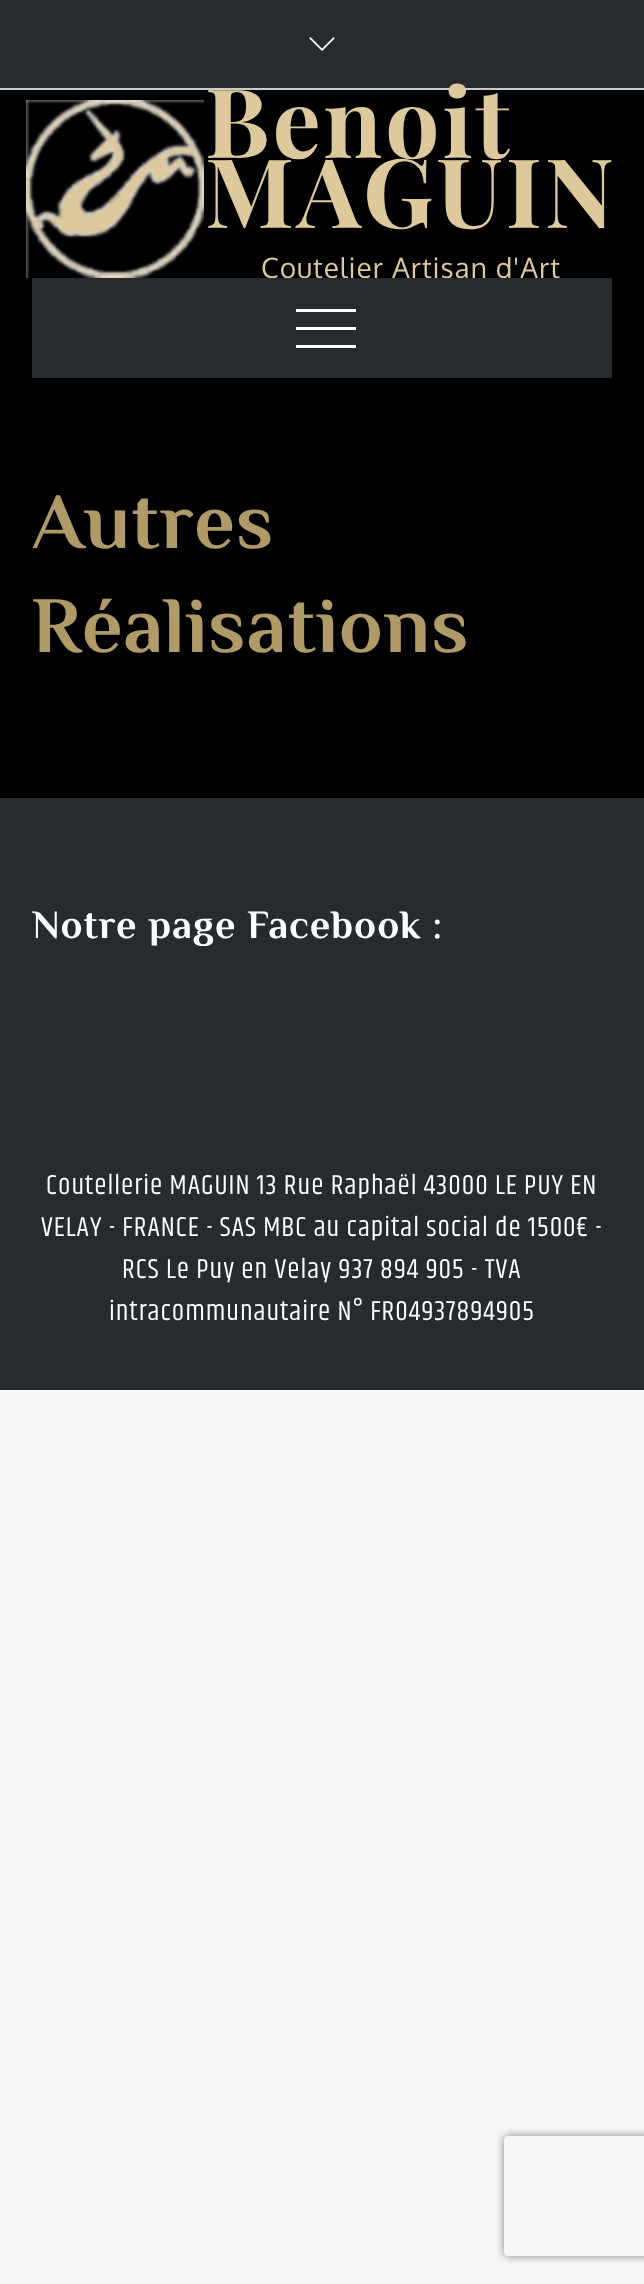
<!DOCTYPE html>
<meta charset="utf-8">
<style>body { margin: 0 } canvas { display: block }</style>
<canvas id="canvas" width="644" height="2284"></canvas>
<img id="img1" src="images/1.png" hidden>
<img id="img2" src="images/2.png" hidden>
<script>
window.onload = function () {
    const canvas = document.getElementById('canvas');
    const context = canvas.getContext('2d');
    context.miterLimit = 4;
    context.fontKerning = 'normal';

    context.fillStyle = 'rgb(248, 248, 248)';
    context.fillRect(0, 0, 644, 2284);
    context.fillStyle = 'rgb(0, 0, 0)';
    context.fillRect(0, 90, 644, 708);
    context.fillStyle = 'rgb(39, 43, 47)';
    context.fillRect(0, 0, 644, 88);
    context.drawImage(document.getElementById('img1'), 309, 37, 26, 14);
    context.fillStyle = 'rgb(204, 204, 204)';
    context.fillRect(0, 88, 644, 2);
    context.drawImage(document.getElementById('img2'), 26, 100, 178, 178);
    context.fillStyle = 'rgb(39, 43, 47)';
    context.fillRect(0, 798, 644, 592);
    context.save();
    context.beginPath();
    context.moveTo(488, 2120);
    context.lineTo(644, 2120);
    context.lineTo(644, 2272);
    context.lineTo(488, 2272);
    context.closePath();
    context.moveTo(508, 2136);
    context.lineTo(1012, 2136);
    context.bezierCurveTo(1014, 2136, 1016, 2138, 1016, 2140);
    context.lineTo(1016, 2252);
    context.bezierCurveTo(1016, 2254, 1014, 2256, 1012, 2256);
    context.lineTo(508, 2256);
    context.bezierCurveTo(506, 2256, 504, 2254, 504, 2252);
    context.lineTo(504, 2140);
    context.bezierCurveTo(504, 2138, 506, 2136, 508, 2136);
    context.closePath();
    context.clip('evenodd');
    context.fillStyle = 'rgb(128, 128, 128)';
    context.filter = 'blur(5px)';
    context.beginPath();
    context.roundRect(504, 2136, 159, 120, 4);
    context.fill();
    context.filter = 'none';
    context.restore();
    context.letterSpacing = '3px';
    context.font = 'bold 96px Playfair Display';
    context.fillStyle = 'rgb(221, 201, 156)';
    context.fillText('Benoit', 205, 158);
    context.fillText('MAGUIN', 205, 228);
    context.letterSpacing = '1px';
    context.font = '28px Oxygen';
    context.fillText('Coutelier Artisan d\'Art', 261, 278);
    context.fillStyle = 'rgb(39, 43, 47)';
    context.fillRect(32, 278, 580, 100);
    context.fillStyle = 'rgb(255, 255, 255)';
    context.fillRect(296, 309, 60, 3);
    context.fillRect(296, 327, 60, 3);
    context.fillRect(296, 345, 60, 3);
    context.font = 'bold 80px Philosopher';
    context.fillStyle = 'rgb(176, 154, 104)';
    context.fillText('Autres', 32, 548);
    context.fillText('Réalisations', 32, 652);
    context.font = 'bold 40px Philosopher';
    context.fillStyle = 'rgb(255, 255, 255)';
    context.fillText('Notre page Facebook :', 32, 938);
    context.font = '28px Khand';
    context.fillText('Coutellerie MAGUIN 13 Rue Raphaël 43000 LE PUY EN', 46, 1194);
    context.fillText('VELAY - FRANCE - SAS MBC au capital social de 1500€ -', 41, 1236);
    context.fillText('RCS Le Puy en Velay 937 894 905 - TVA', 122, 1278);
    context.fillText('intracommunautaire N° FR04937894905', 109, 1320);
};
</script>
